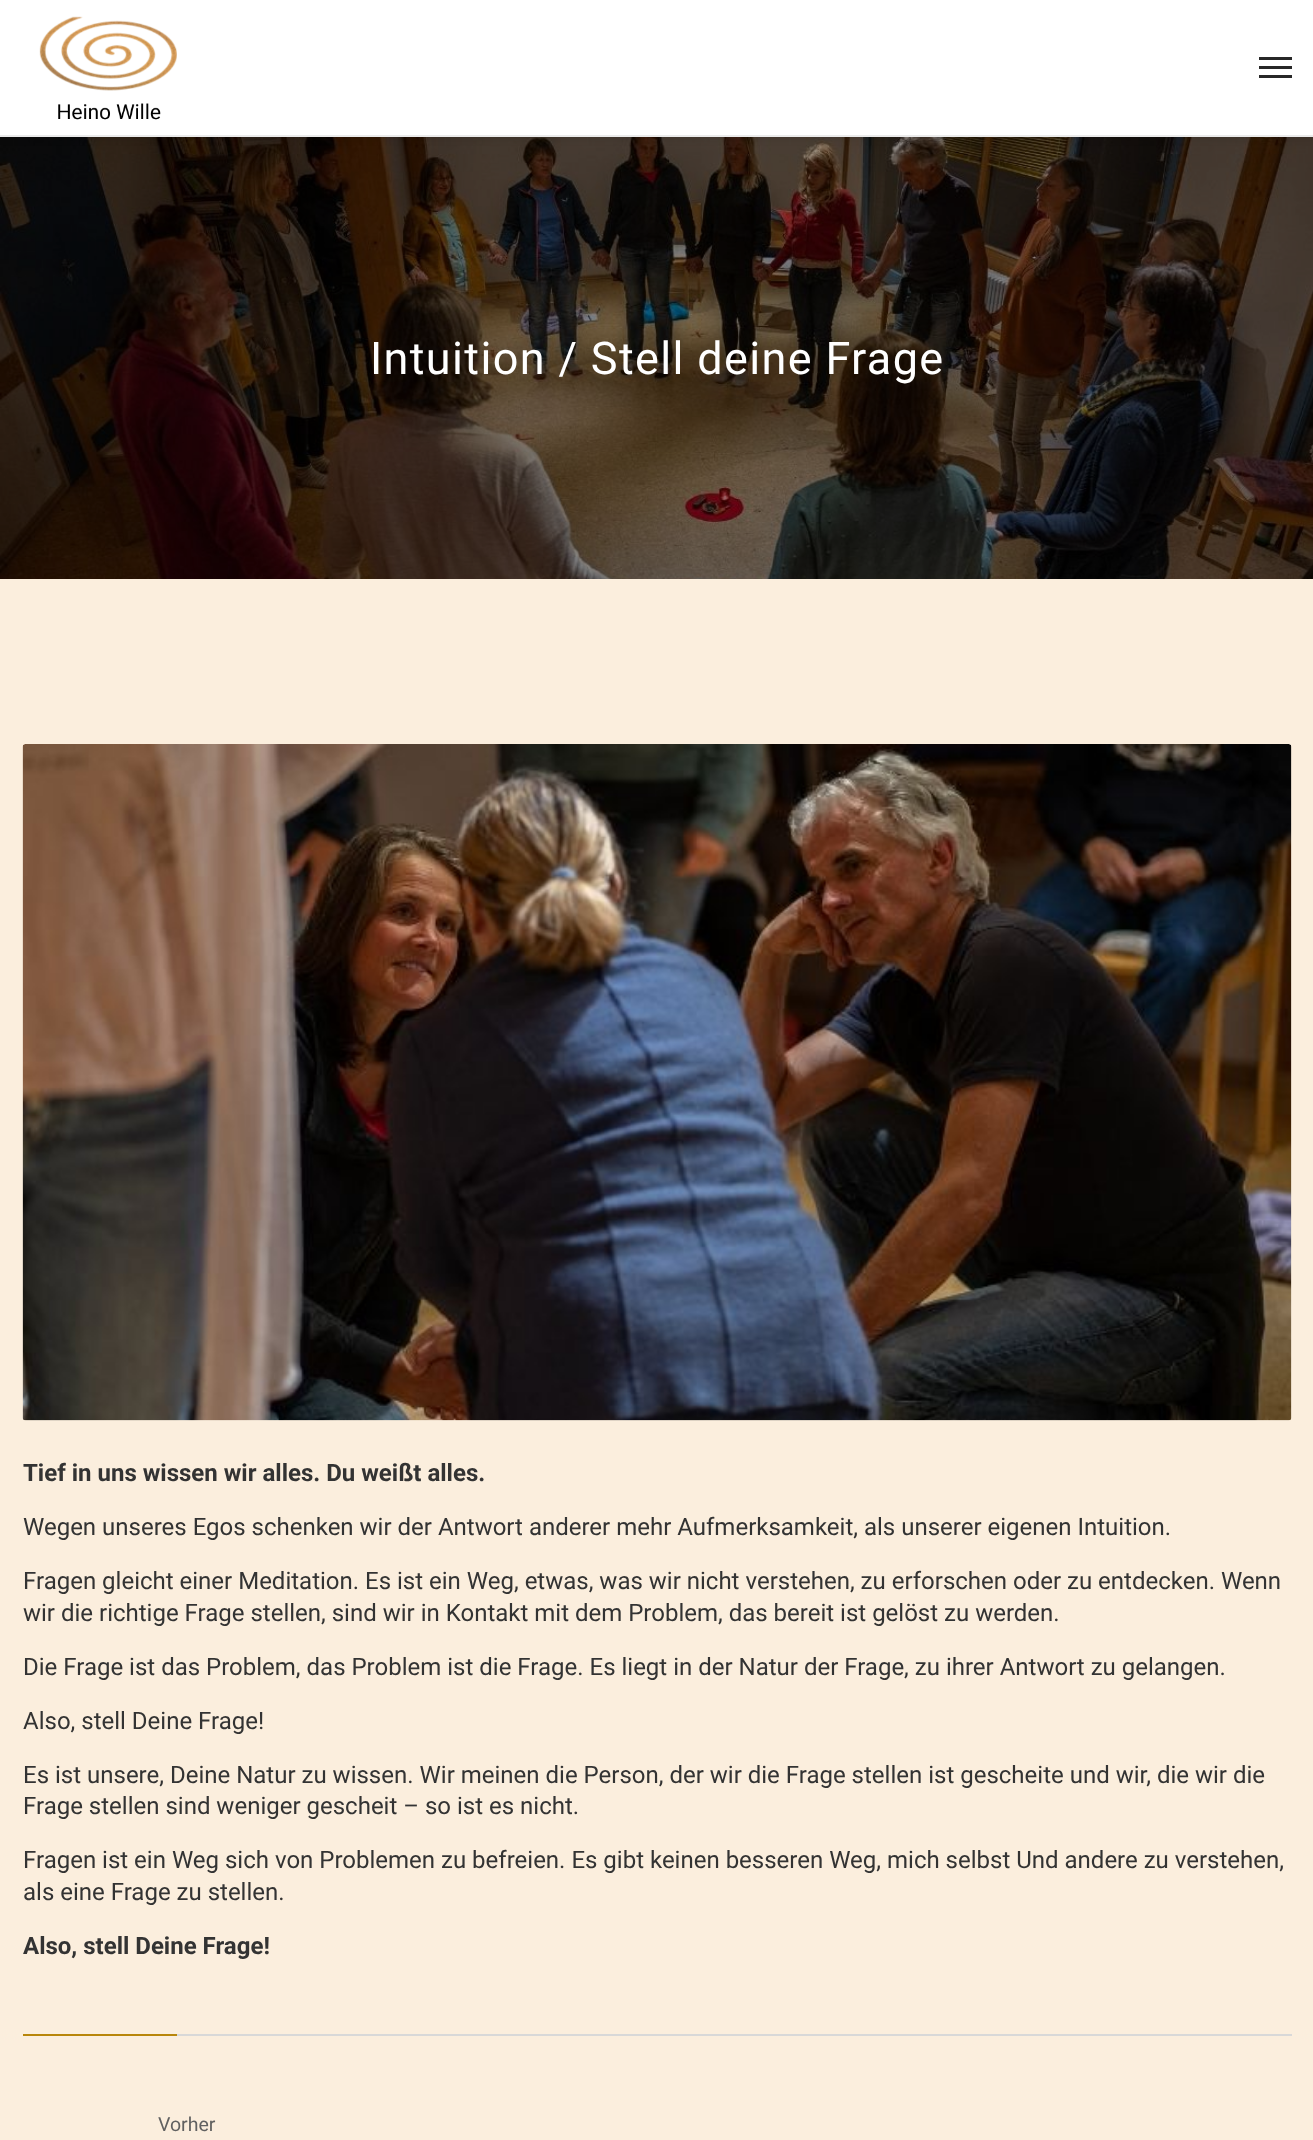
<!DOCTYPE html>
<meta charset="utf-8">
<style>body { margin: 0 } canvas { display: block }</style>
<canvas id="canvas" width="1313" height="2140"></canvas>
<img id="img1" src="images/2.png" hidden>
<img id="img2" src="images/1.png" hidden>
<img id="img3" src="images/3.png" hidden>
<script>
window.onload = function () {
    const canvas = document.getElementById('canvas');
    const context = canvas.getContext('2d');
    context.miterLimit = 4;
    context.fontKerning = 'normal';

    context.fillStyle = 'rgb(255, 255, 255)';
    context.fillRect(0, 0, 1313, 2140);
    context.drawImage(document.getElementById('img1'), 0, 137, 1313, 442);
    context.fillStyle = 'rgba(0, 0, 0, 0.15)';
    context.filter = 'blur(4px)';
    context.beginPath();
    context.rect(0, 0, 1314, 137);
    context.fill();
    context.filter = 'none';
    context.fillStyle = 'rgb(255, 255, 255)';
    context.fillRect(0, 0, 1313, 135);
    context.fillStyle = 'rgb(235, 235, 235)';
    context.fillRect(0, 135, 1313, 2);
    context.drawImage(document.getElementById('img2'), 39, 16, 138, 104);
    context.fillStyle = 'rgb(40, 40, 40)';
    context.fillRect(1259, 57, 33, 3);
    context.fillRect(1259, 66, 33, 3);
    context.fillRect(1259, 75, 33, 3);
    context.fillStyle = 'rgb(251, 238, 221)';
    context.fillRect(0, 579, 1313, 1561);
    context.drawImage(document.getElementById('img3'), 22, 744, 1270, 677);
    context.fillStyle = 'rgb(216, 216, 216)';
    context.fillRect(177, 2034, 1115, 2);
    context.fillStyle = 'rgb(184, 134, 11)';
    context.fillRect(23, 2034, 154, 2);
    context.letterSpacing = '1.35px';
    context.font = '45px Roboto';
    context.fillStyle = 'rgb(255, 255, 255)';
    context.fillText('Intuition / Stell deine Frage', 370, 374);
    context.letterSpacing = '0px';
    context.font = 'bold 24px Roboto';
    context.fillStyle = 'rgb(51, 51, 51)';
    context.fillText('Tief in uns wissen wir alles. Du weißt alles.', 23, 1481);
    context.font = '24px Roboto';
    context.fillText('Wegen unseres Egos schenken wir der Antwort anderer mehr Aufmerksamkeit, als unserer eigenen Intuition.', 23, 1535);
    context.fillText('Fragen gleicht einer Meditation. Es ist ein Weg, etwas, was wir nicht verstehen, zu erforschen oder zu entdecken. Wenn', 23, 1589);
    context.fillText('wir die richtige Frage stellen, sind wir in Kontakt mit dem Problem, das bereit ist gelöst zu werden.', 23, 1621);
    context.fillText('Die Frage ist das Problem, das Problem ist die Frage. Es liegt in der Natur der Frage, zu ihrer Antwort zu gelangen.', 23, 1675);
    context.fillText('Also, stell Deine Frage!', 23, 1729);
    context.fillText('Es ist unsere, Deine Natur zu wissen. Wir meinen die Person, der wir die Frage stellen ist gescheite und wir, die wir die', 23, 1783);
    context.fillText('Frage stellen sind weniger gescheit – so ist es nicht.', 23, 1814);
    context.fillText('Fragen ist ein Weg sich von Problemen zu befreien. Es gibt keinen besseren Weg, mich selbst Und andere zu verstehen,', 23, 1868);
    context.fillText('als eine Frage zu stellen.', 23, 1900);
    context.font = 'bold 24px Roboto';
    context.fillText('Also, stell Deine Frage!', 23, 1954);
    context.font = '19.5px Roboto';
    context.fillStyle = 'rgb(97, 97, 97)';
    context.fillText('Vorher', 158, 2131);
};
</script>
